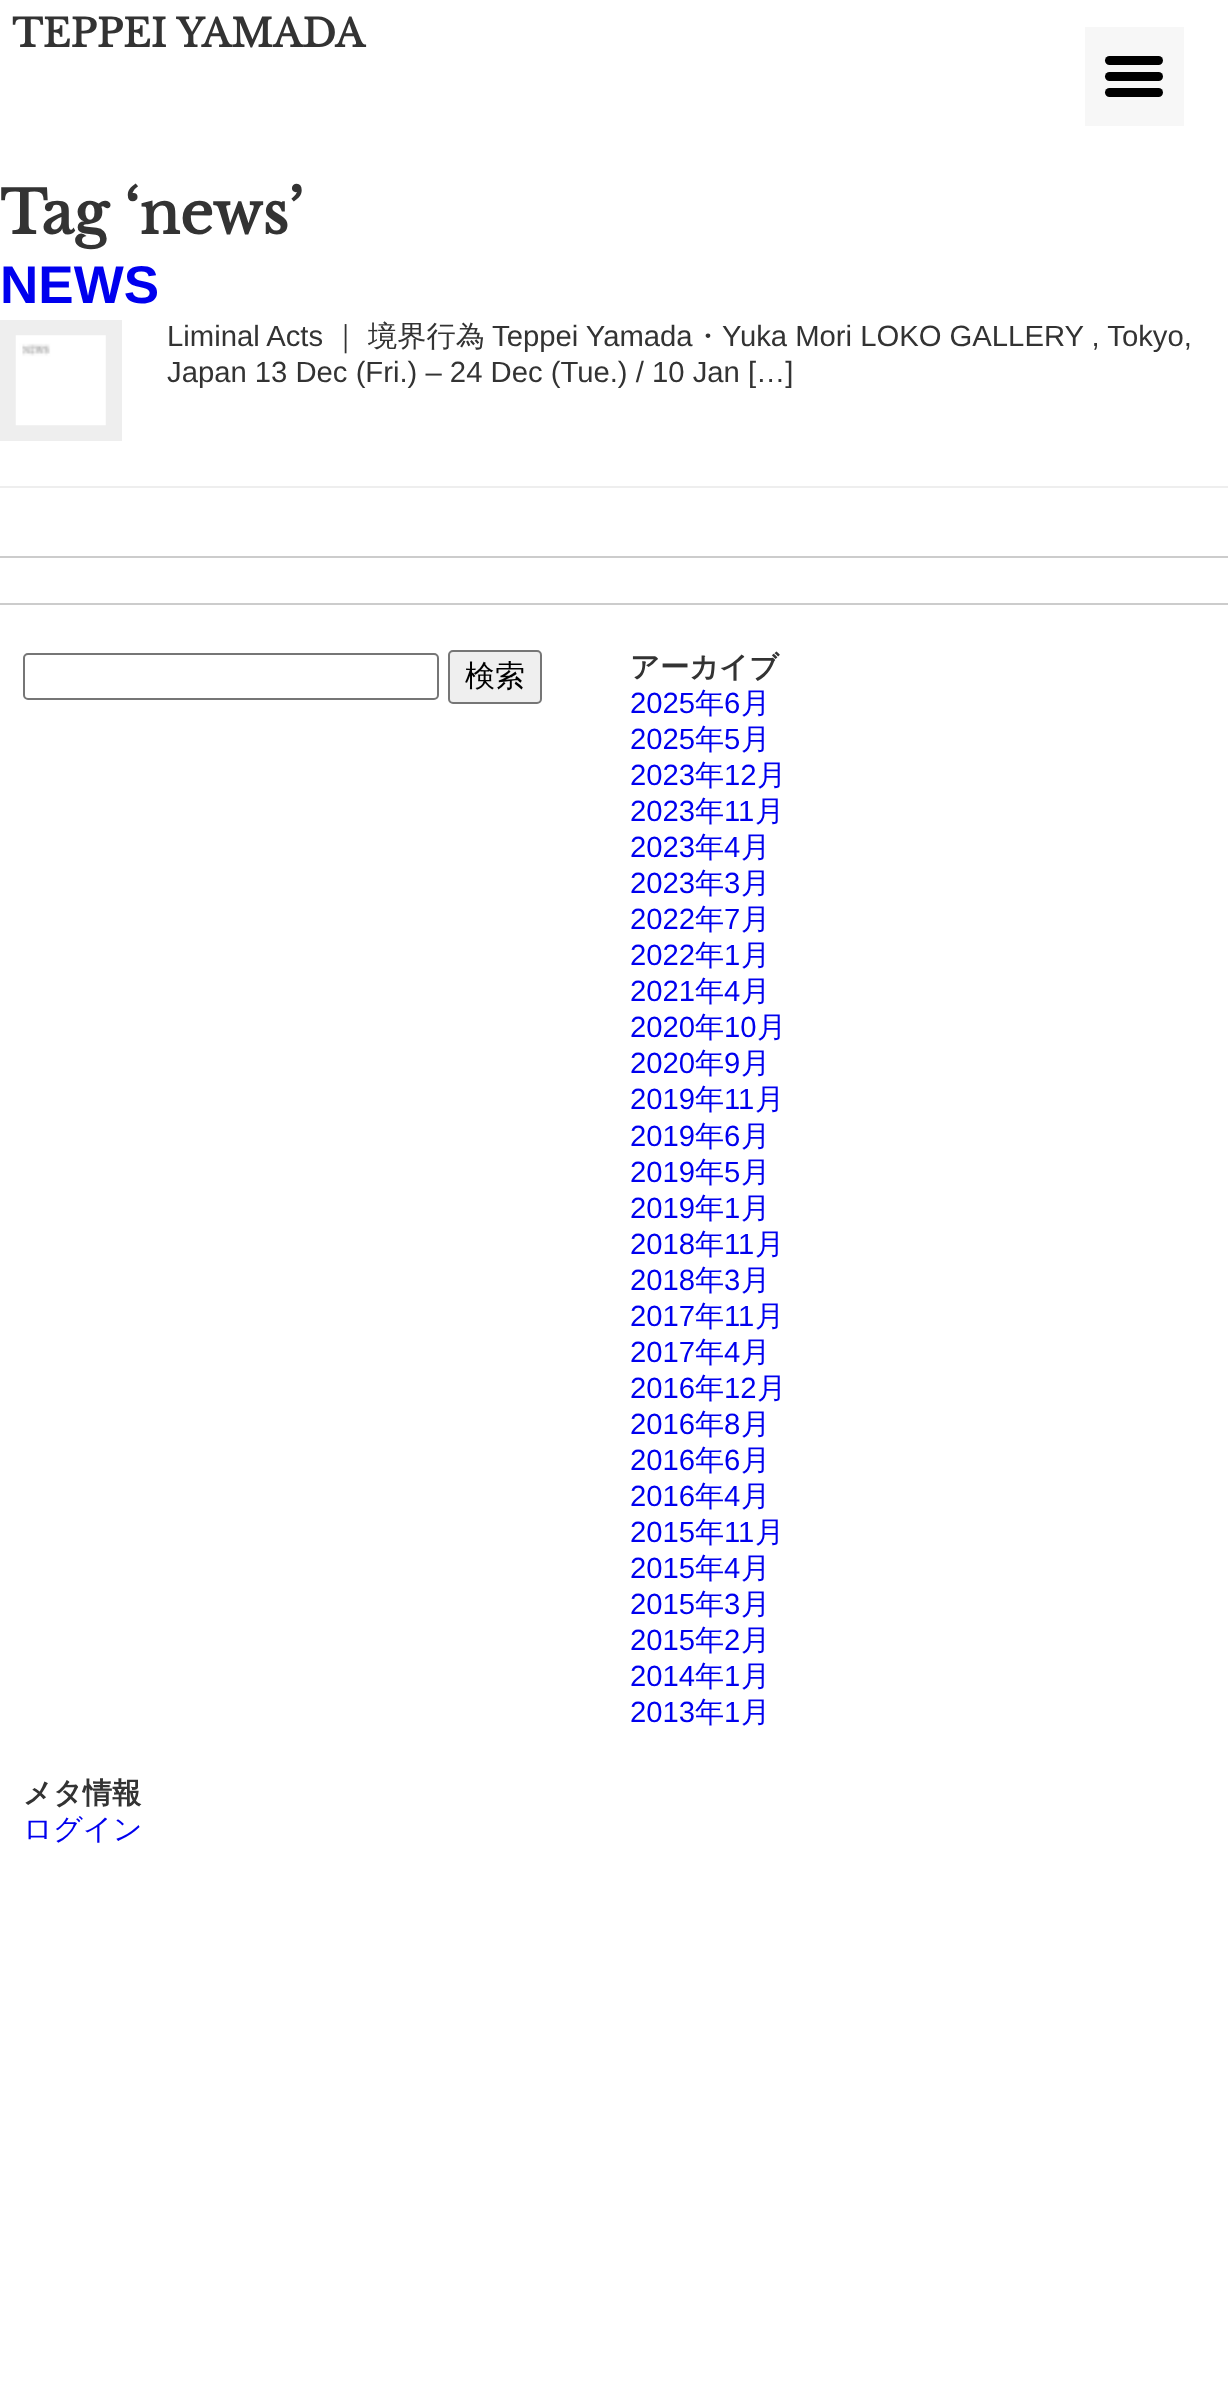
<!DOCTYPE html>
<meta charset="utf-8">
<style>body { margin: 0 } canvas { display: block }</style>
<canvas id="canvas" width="1228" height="2385"></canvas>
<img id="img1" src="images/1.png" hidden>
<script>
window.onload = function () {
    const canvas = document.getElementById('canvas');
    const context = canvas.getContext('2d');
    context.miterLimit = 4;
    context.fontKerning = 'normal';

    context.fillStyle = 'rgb(255, 255, 255)';
    context.fillRect(0, 0, 1228, 2385);
    context.fillStyle = 'rgb(247, 247, 247)';
    context.fillRect(1085, 27, 99, 99);
    context.fillStyle = 'rgb(0, 0, 0)';
    context.beginPath();
    context.roundRect(1105, 56, 58, 9, 4.5);
    context.fill();
    context.beginPath();
    context.roundRect(1105, 72, 58, 9, 4.5);
    context.fill();
    context.beginPath();
    context.roundRect(1105, 88, 58, 9, 4.5);
    context.fill();
    context.fillStyle = 'rgb(238, 238, 238)';
    context.fillRect(0, 320, 122, 121);
    context.drawImage(document.getElementById('img1'), 15, 335, 91, 91);
    context.fillRect(0, 486, 1228, 2);
    context.fillStyle = 'rgb(204, 204, 204)';
    context.fillRect(0, 556, 1228, 2);
    context.fillRect(0, 603, 1228, 2);
    context.beginPath();
    context.roundRect(24, 654, 414, 45, 4);
    context.strokeStyle = 'rgb(118, 118, 118)';
    context.lineWidth = 2;
    context.stroke();
    context.fillStyle = 'rgb(239, 239, 239)';
    context.beginPath();
    context.roundRect(449, 651, 92, 52, 4);
    context.fill();
    context.stroke();
    context.font = 'bold 38.25px Libre Baskerville';
    context.fillStyle = 'rgb(51, 51, 51)';
    context.fillText('TEPPEI YAMADA', 12, 47);
    context.font = 'bold 58.5px Libre Baskerville';
    context.fillText('Tag ‘news’', 0, 234);
    context.font = 'bold 53px Liberation Sans';
    context.fillStyle = 'rgb(0, 0, 238)';
    context.fillText('NEWS', 0, 303);
    context.font = '29.25px Liberation Sans';
    context.fillStyle = 'rgb(51, 51, 51)';
    context.fillText('Liminal Acts', 167, 346);
    context.font = '500 29.25px WenQuanYi Zen Hei';
    context.fillText('｜', 331, 346);
    context.fillText('境界行為', 368, 346);
    context.font = '29.25px Liberation Sans';
    context.fillText('Teppei Yamada', 492, 346);
    context.font = '500 29.25px WenQuanYi Zen Hei';
    context.fillText('・', 693, 346);
    context.font = '29.25px Liberation Sans';
    context.fillText('Yuka Mori LOKO GALLERY , Tokyo,', 722, 346);
    context.fillText('Japan 13 Dec (Fri.) – 24 Dec (Tue.) / 10 Jan […]', 167, 382);
    context.font = '500 30px WenQuanYi Zen Hei';
    context.fillStyle = 'rgb(0, 0, 0)';
    context.fillText('検索', 465, 686);
    context.font = 'bold 29.25px WenQuanYi Zen Hei';
    context.fillStyle = 'rgb(51, 51, 51)';
    context.fillText('アーカイブ', 630, 677);
    context.font = '29.25px Liberation Sans';
    context.fillStyle = 'rgb(0, 0, 238)';
    context.fillText('2025', 630, 713);
    context.font = '500 29.25px WenQuanYi Zen Hei';
    context.fillText('年', 695, 713);
    context.font = '29.25px Liberation Sans';
    context.fillText('6', 724, 713);
    context.font = '500 29.25px WenQuanYi Zen Hei';
    context.fillText('月', 741, 713);
    context.font = '29.25px Liberation Sans';
    context.fillText('2025', 630, 749);
    context.font = '500 29.25px WenQuanYi Zen Hei';
    context.fillText('年', 695, 749);
    context.font = '29.25px Liberation Sans';
    context.fillText('5', 724, 749);
    context.font = '500 29.25px WenQuanYi Zen Hei';
    context.fillText('月', 741, 749);
    context.font = '29.25px Liberation Sans';
    context.fillText('2023', 630, 785);
    context.font = '500 29.25px WenQuanYi Zen Hei';
    context.fillText('年', 695, 785);
    context.font = '29.25px Liberation Sans';
    context.fillText('12', 724, 785);
    context.font = '500 29.25px WenQuanYi Zen Hei';
    context.fillText('月', 757, 785);
    context.font = '29.25px Liberation Sans';
    context.fillText('2023', 630, 821);
    context.font = '500 29.25px WenQuanYi Zen Hei';
    context.fillText('年', 695, 821);
    context.font = '29.25px Liberation Sans';
    context.fillText('11', 724, 821);
    context.font = '500 29.25px WenQuanYi Zen Hei';
    context.fillText('月', 755, 821);
    context.font = '29.25px Liberation Sans';
    context.fillText('2023', 630, 857);
    context.font = '500 29.25px WenQuanYi Zen Hei';
    context.fillText('年', 695, 857);
    context.font = '29.25px Liberation Sans';
    context.fillText('4', 724, 857);
    context.font = '500 29.25px WenQuanYi Zen Hei';
    context.fillText('月', 741, 857);
    context.font = '29.25px Liberation Sans';
    context.fillText('2023', 630, 893);
    context.font = '500 29.25px WenQuanYi Zen Hei';
    context.fillText('年', 695, 893);
    context.font = '29.25px Liberation Sans';
    context.fillText('3', 724, 893);
    context.font = '500 29.25px WenQuanYi Zen Hei';
    context.fillText('月', 741, 893);
    context.font = '29.25px Liberation Sans';
    context.fillText('2022', 630, 929);
    context.font = '500 29.25px WenQuanYi Zen Hei';
    context.fillText('年', 695, 929);
    context.font = '29.25px Liberation Sans';
    context.fillText('7', 724, 929);
    context.font = '500 29.25px WenQuanYi Zen Hei';
    context.fillText('月', 741, 929);
    context.font = '29.25px Liberation Sans';
    context.fillText('2022', 630, 965);
    context.font = '500 29.25px WenQuanYi Zen Hei';
    context.fillText('年', 695, 965);
    context.font = '29.25px Liberation Sans';
    context.fillText('1', 724, 965);
    context.font = '500 29.25px WenQuanYi Zen Hei';
    context.fillText('月', 741, 965);
    context.font = '29.25px Liberation Sans';
    context.fillText('2021', 630, 1001);
    context.font = '500 29.25px WenQuanYi Zen Hei';
    context.fillText('年', 695, 1001);
    context.font = '29.25px Liberation Sans';
    context.fillText('4', 724, 1001);
    context.font = '500 29.25px WenQuanYi Zen Hei';
    context.fillText('月', 741, 1001);
    context.font = '29.25px Liberation Sans';
    context.fillText('2020', 630, 1037);
    context.font = '500 29.25px WenQuanYi Zen Hei';
    context.fillText('年', 695, 1037);
    context.font = '29.25px Liberation Sans';
    context.fillText('10', 724, 1037);
    context.font = '500 29.25px WenQuanYi Zen Hei';
    context.fillText('月', 757, 1037);
    context.font = '29.25px Liberation Sans';
    context.fillText('2020', 630, 1073);
    context.font = '500 29.25px WenQuanYi Zen Hei';
    context.fillText('年', 695, 1073);
    context.font = '29.25px Liberation Sans';
    context.fillText('9', 724, 1073);
    context.font = '500 29.25px WenQuanYi Zen Hei';
    context.fillText('月', 741, 1073);
    context.font = '29.25px Liberation Sans';
    context.fillText('2019', 630, 1109);
    context.font = '500 29.25px WenQuanYi Zen Hei';
    context.fillText('年', 695, 1109);
    context.font = '29.25px Liberation Sans';
    context.fillText('11', 724, 1109);
    context.font = '500 29.25px WenQuanYi Zen Hei';
    context.fillText('月', 755, 1109);
    context.font = '29.25px Liberation Sans';
    context.fillText('2019', 630, 1146);
    context.font = '500 29.25px WenQuanYi Zen Hei';
    context.fillText('年', 695, 1146);
    context.font = '29.25px Liberation Sans';
    context.fillText('6', 724, 1146);
    context.font = '500 29.25px WenQuanYi Zen Hei';
    context.fillText('月', 741, 1146);
    context.font = '29.25px Liberation Sans';
    context.fillText('2019', 630, 1182);
    context.font = '500 29.25px WenQuanYi Zen Hei';
    context.fillText('年', 695, 1182);
    context.font = '29.25px Liberation Sans';
    context.fillText('5', 724, 1182);
    context.font = '500 29.25px WenQuanYi Zen Hei';
    context.fillText('月', 741, 1182);
    context.font = '29.25px Liberation Sans';
    context.fillText('2019', 630, 1218);
    context.font = '500 29.25px WenQuanYi Zen Hei';
    context.fillText('年', 695, 1218);
    context.font = '29.25px Liberation Sans';
    context.fillText('1', 724, 1218);
    context.font = '500 29.25px WenQuanYi Zen Hei';
    context.fillText('月', 741, 1218);
    context.font = '29.25px Liberation Sans';
    context.fillText('2018', 630, 1254);
    context.font = '500 29.25px WenQuanYi Zen Hei';
    context.fillText('年', 695, 1254);
    context.font = '29.25px Liberation Sans';
    context.fillText('11', 724, 1254);
    context.font = '500 29.25px WenQuanYi Zen Hei';
    context.fillText('月', 755, 1254);
    context.font = '29.25px Liberation Sans';
    context.fillText('2018', 630, 1290);
    context.font = '500 29.25px WenQuanYi Zen Hei';
    context.fillText('年', 695, 1290);
    context.font = '29.25px Liberation Sans';
    context.fillText('3', 724, 1290);
    context.font = '500 29.25px WenQuanYi Zen Hei';
    context.fillText('月', 741, 1290);
    context.font = '29.25px Liberation Sans';
    context.fillText('2017', 630, 1326);
    context.font = '500 29.25px WenQuanYi Zen Hei';
    context.fillText('年', 695, 1326);
    context.font = '29.25px Liberation Sans';
    context.fillText('11', 724, 1326);
    context.font = '500 29.25px WenQuanYi Zen Hei';
    context.fillText('月', 755, 1326);
    context.font = '29.25px Liberation Sans';
    context.fillText('2017', 630, 1362);
    context.font = '500 29.25px WenQuanYi Zen Hei';
    context.fillText('年', 695, 1362);
    context.font = '29.25px Liberation Sans';
    context.fillText('4', 724, 1362);
    context.font = '500 29.25px WenQuanYi Zen Hei';
    context.fillText('月', 741, 1362);
    context.font = '29.25px Liberation Sans';
    context.fillText('2016', 630, 1398);
    context.font = '500 29.25px WenQuanYi Zen Hei';
    context.fillText('年', 695, 1398);
    context.font = '29.25px Liberation Sans';
    context.fillText('12', 724, 1398);
    context.font = '500 29.25px WenQuanYi Zen Hei';
    context.fillText('月', 757, 1398);
    context.font = '29.25px Liberation Sans';
    context.fillText('2016', 630, 1434);
    context.font = '500 29.25px WenQuanYi Zen Hei';
    context.fillText('年', 695, 1434);
    context.font = '29.25px Liberation Sans';
    context.fillText('8', 724, 1434);
    context.font = '500 29.25px WenQuanYi Zen Hei';
    context.fillText('月', 741, 1434);
    context.font = '29.25px Liberation Sans';
    context.fillText('2016', 630, 1470);
    context.font = '500 29.25px WenQuanYi Zen Hei';
    context.fillText('年', 695, 1470);
    context.font = '29.25px Liberation Sans';
    context.fillText('6', 724, 1470);
    context.font = '500 29.25px WenQuanYi Zen Hei';
    context.fillText('月', 741, 1470);
    context.font = '29.25px Liberation Sans';
    context.fillText('2016', 630, 1506);
    context.font = '500 29.25px WenQuanYi Zen Hei';
    context.fillText('年', 695, 1506);
    context.font = '29.25px Liberation Sans';
    context.fillText('4', 724, 1506);
    context.font = '500 29.25px WenQuanYi Zen Hei';
    context.fillText('月', 741, 1506);
    context.font = '29.25px Liberation Sans';
    context.fillText('2015', 630, 1542);
    context.font = '500 29.25px WenQuanYi Zen Hei';
    context.fillText('年', 695, 1542);
    context.font = '29.25px Liberation Sans';
    context.fillText('11', 724, 1542);
    context.font = '500 29.25px WenQuanYi Zen Hei';
    context.fillText('月', 755, 1542);
    context.font = '29.25px Liberation Sans';
    context.fillText('2015', 630, 1578);
    context.font = '500 29.25px WenQuanYi Zen Hei';
    context.fillText('年', 695, 1578);
    context.font = '29.25px Liberation Sans';
    context.fillText('4', 724, 1578);
    context.font = '500 29.25px WenQuanYi Zen Hei';
    context.fillText('月', 741, 1578);
    context.font = '29.25px Liberation Sans';
    context.fillText('2015', 630, 1614);
    context.font = '500 29.25px WenQuanYi Zen Hei';
    context.fillText('年', 695, 1614);
    context.font = '29.25px Liberation Sans';
    context.fillText('3', 724, 1614);
    context.font = '500 29.25px WenQuanYi Zen Hei';
    context.fillText('月', 741, 1614);
    context.font = '29.25px Liberation Sans';
    context.fillText('2015', 630, 1650);
    context.font = '500 29.25px WenQuanYi Zen Hei';
    context.fillText('年', 695, 1650);
    context.font = '29.25px Liberation Sans';
    context.fillText('2', 724, 1650);
    context.font = '500 29.25px WenQuanYi Zen Hei';
    context.fillText('月', 741, 1650);
    context.font = '29.25px Liberation Sans';
    context.fillText('2014', 630, 1686);
    context.font = '500 29.25px WenQuanYi Zen Hei';
    context.fillText('年', 695, 1686);
    context.font = '29.25px Liberation Sans';
    context.fillText('1', 724, 1686);
    context.font = '500 29.25px WenQuanYi Zen Hei';
    context.fillText('月', 741, 1686);
    context.font = '29.25px Liberation Sans';
    context.fillText('2013', 630, 1722);
    context.font = '500 29.25px WenQuanYi Zen Hei';
    context.fillText('年', 695, 1722);
    context.font = '29.25px Liberation Sans';
    context.fillText('1', 724, 1722);
    context.font = '500 29.25px WenQuanYi Zen Hei';
    context.fillText('月', 741, 1722);
    context.font = 'bold 29.25px WenQuanYi Zen Hei';
    context.fillStyle = 'rgb(51, 51, 51)';
    context.fillText('メタ情報', 23, 1803);
    context.font = '500 29.25px WenQuanYi Zen Hei';
    context.fillStyle = 'rgb(0, 0, 238)';
    context.fillText('ログイン', 23, 1839);
};
</script>
